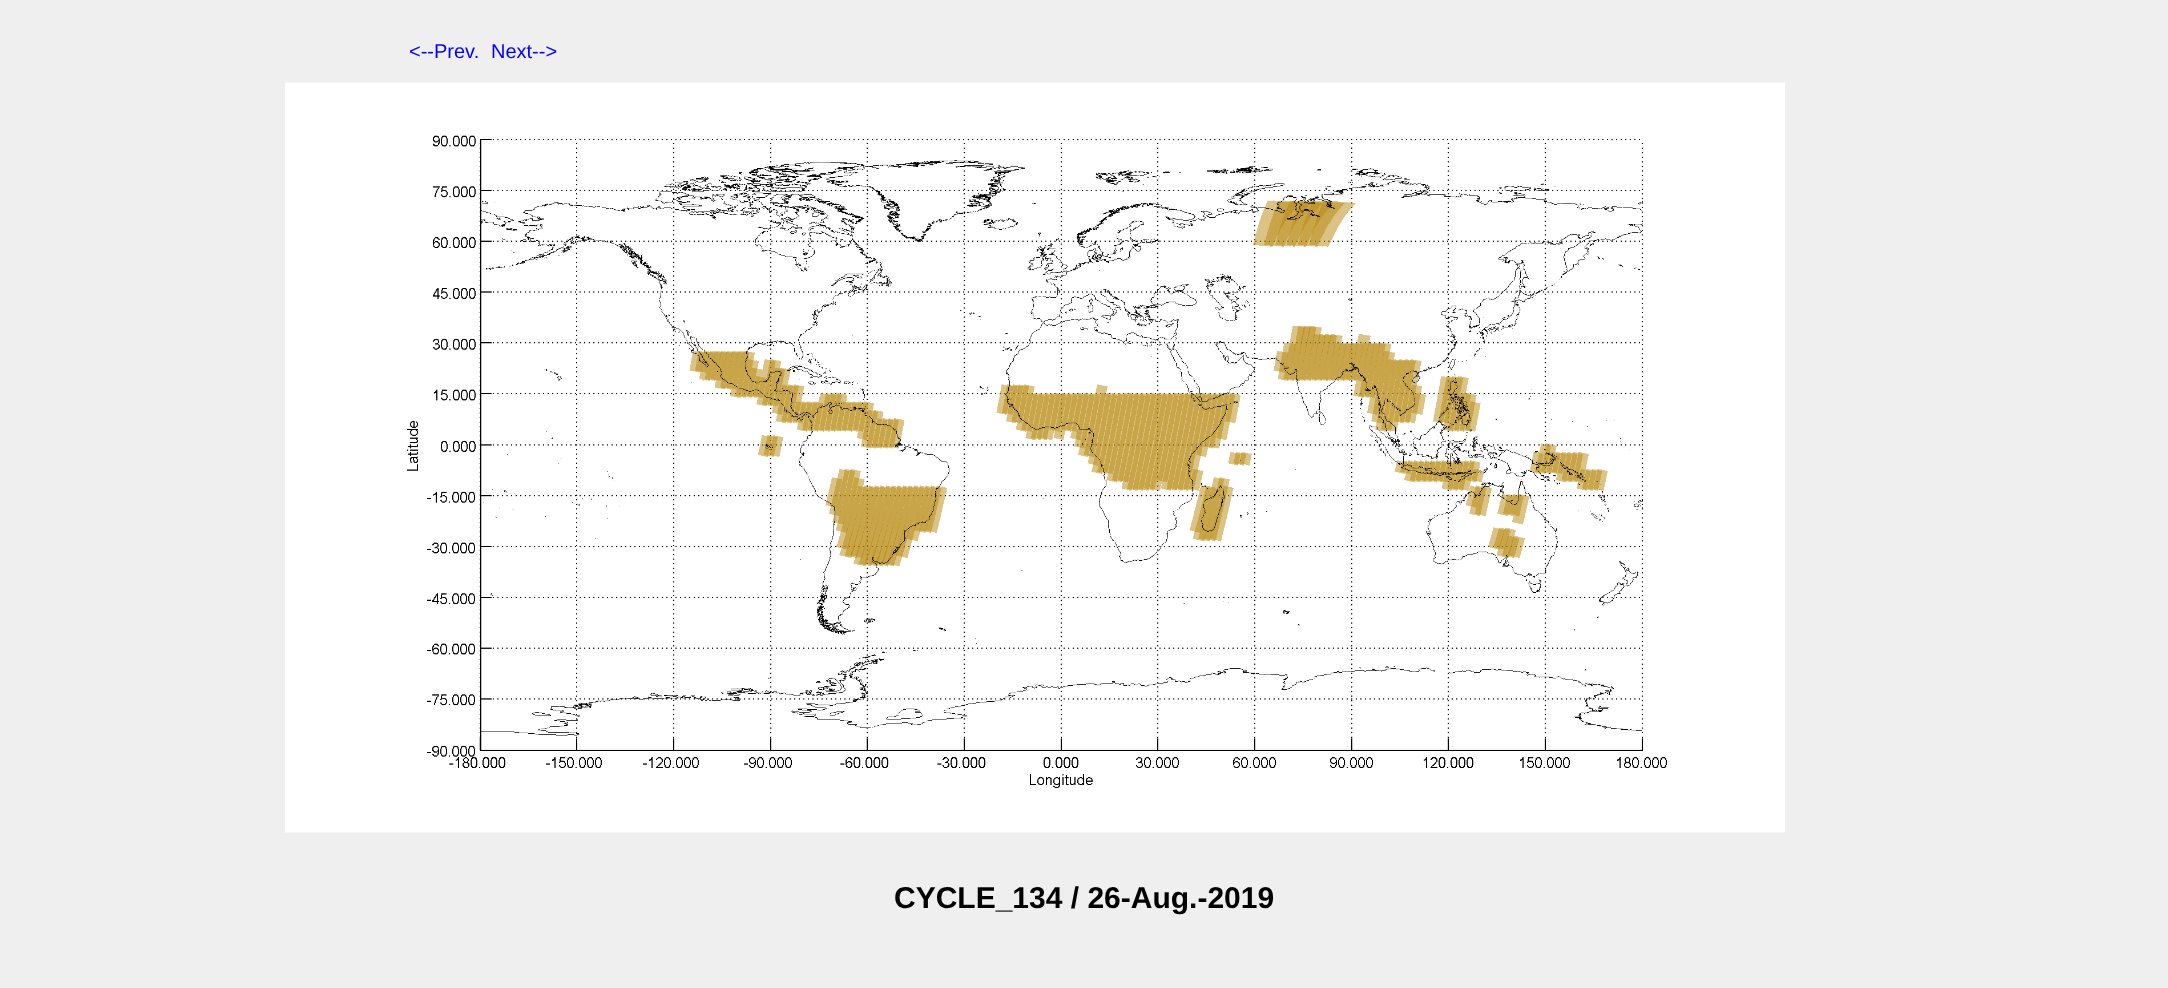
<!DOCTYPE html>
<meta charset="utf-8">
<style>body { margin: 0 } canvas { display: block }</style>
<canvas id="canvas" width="2168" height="988"></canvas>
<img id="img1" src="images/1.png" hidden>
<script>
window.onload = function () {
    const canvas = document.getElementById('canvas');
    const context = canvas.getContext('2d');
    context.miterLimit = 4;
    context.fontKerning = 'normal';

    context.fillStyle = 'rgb(239, 239, 239)';
    context.fillRect(0, 0, 2168, 988);
    context.drawImage(document.getElementById('img1'), 285, 82, 1500, 751);
    context.font = '20px Liberation Sans';
    context.fillStyle = 'rgb(0, 0, 255)';
    context.fillText('<--Prev.', 409, 58);
    context.fillText('Next-->', 491, 58);
    context.font = 'bold 30px Liberation Sans';
    context.fillStyle = 'rgb(0, 0, 0)';
    context.fillText('CYCLE_134 / 26-Aug.-2019', 894, 908);
};
</script>
